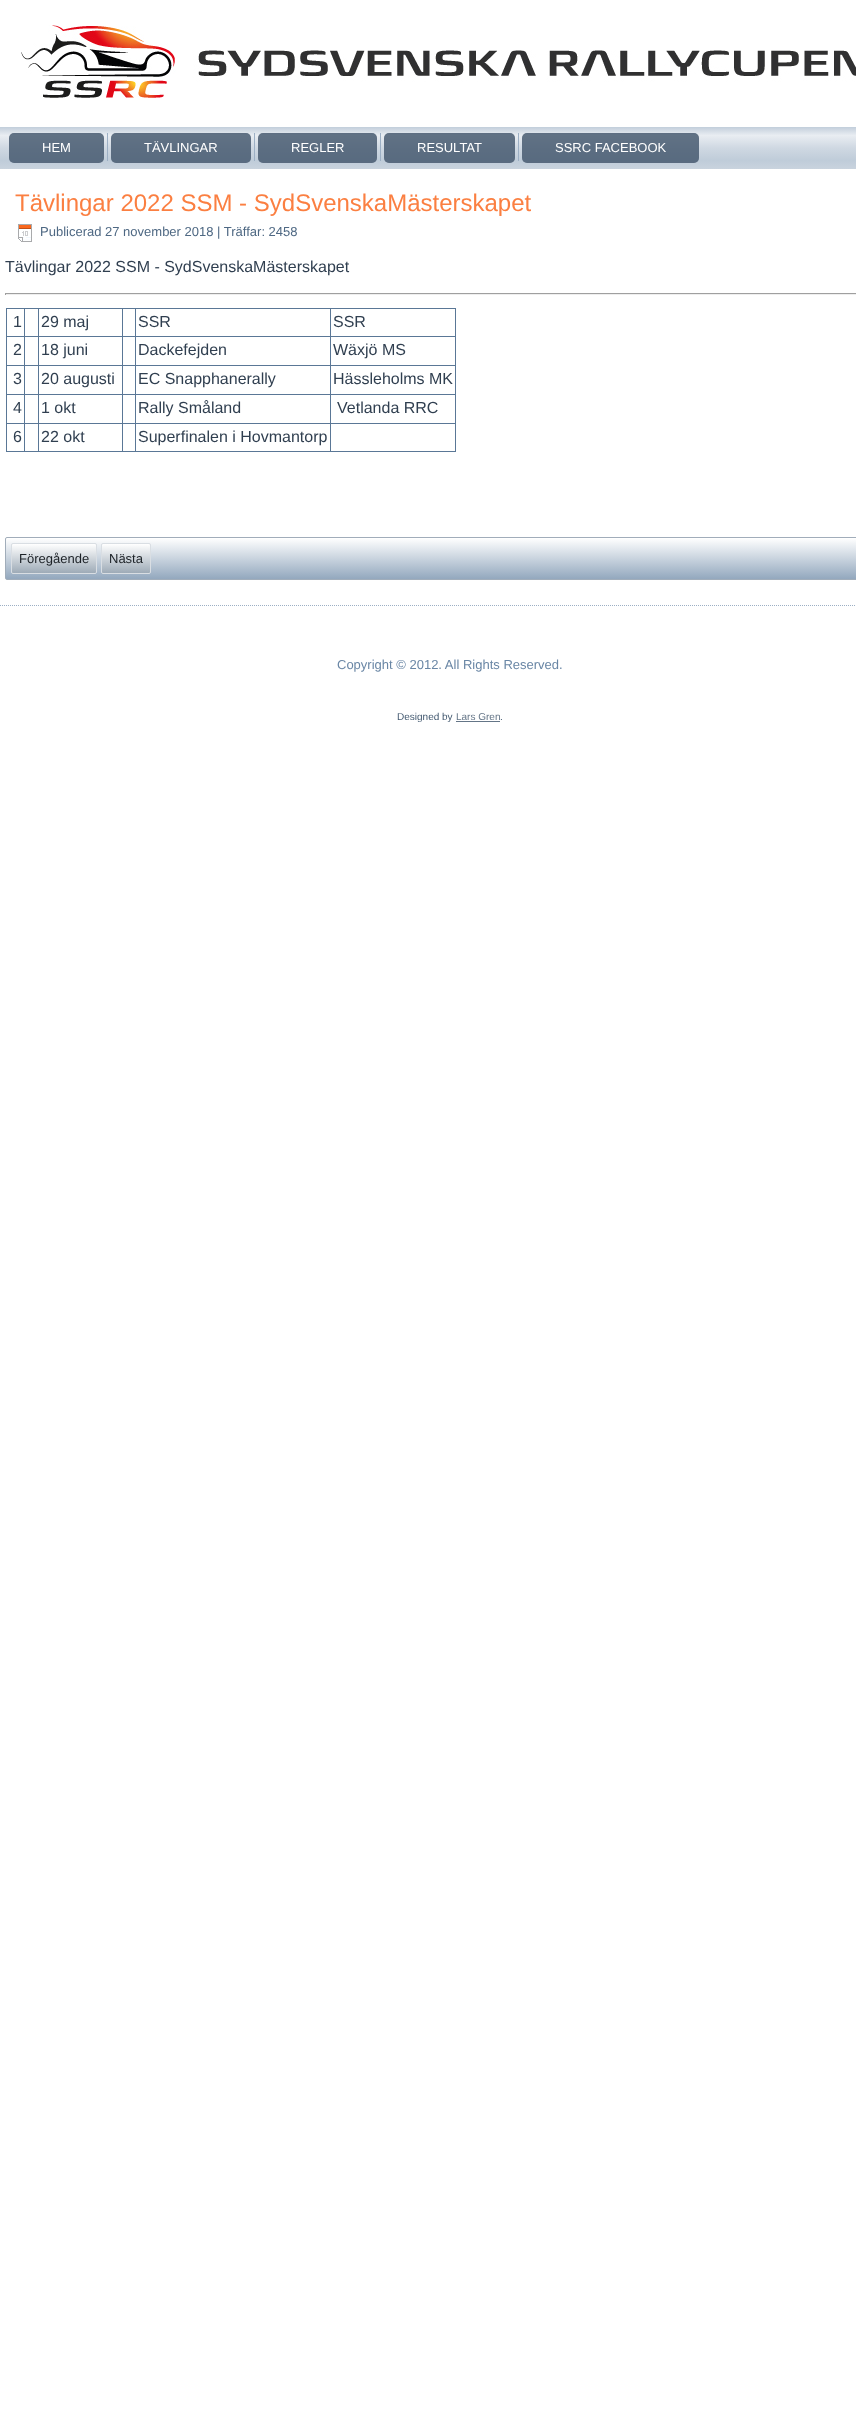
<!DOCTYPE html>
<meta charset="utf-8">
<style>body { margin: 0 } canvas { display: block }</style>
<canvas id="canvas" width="856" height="2414"></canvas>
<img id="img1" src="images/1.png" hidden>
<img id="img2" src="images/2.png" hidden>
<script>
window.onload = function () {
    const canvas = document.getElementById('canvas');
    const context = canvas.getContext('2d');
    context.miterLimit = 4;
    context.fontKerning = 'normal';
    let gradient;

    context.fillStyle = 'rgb(255, 255, 255)';
    context.fillRect(0, 0, 856, 2414);
    context.drawImage(document.getElementById('img1'), 21, 25, 835, 73);
    gradient = context.createLinearGradient(450, 127, 450, 169);
    gradient.addColorStop(0, 'rgb(194, 206, 219)');
    gradient.addColorStop(0.2, 'rgb(233, 237, 242)');
    gradient.addColorStop(0.5, 'rgb(207, 216, 226)');
    gradient.addColorStop(0.8, 'rgb(191, 204, 217)');
    gradient.addColorStop(1, 'rgb(201, 211, 222)');
    context.fillStyle = gradient;
    context.fillRect(0, 127, 856, 42);
    context.fillStyle = 'rgba(63, 83, 105, 0.8)';
    context.beginPath();
    context.roundRect(9, 133, 95, 30, 5);
    context.fill();
    context.beginPath();
    context.roundRect(9.5, 133.5, 94, 29, 4.5);
    context.strokeStyle = 'rgba(95, 112, 129, 0.2)';
    context.stroke();
    context.fillStyle = 'rgb(156, 175, 196)';
    context.fillRect(107, 133, 1, 28);
    context.fillStyle = 'rgba(63, 83, 105, 0.8)';
    context.beginPath();
    context.roundRect(111, 133, 140, 30, 5);
    context.fill();
    context.beginPath();
    context.roundRect(111.5, 133.5, 139, 29, 4.5);
    context.stroke();
    context.fillStyle = 'rgb(156, 175, 196)';
    context.fillRect(254, 133, 1, 28);
    context.fillStyle = 'rgba(63, 83, 105, 0.8)';
    context.beginPath();
    context.roundRect(258, 133, 119, 30, 5);
    context.fill();
    context.beginPath();
    context.roundRect(258.5, 133.5, 118, 29, 4.5);
    context.stroke();
    context.fillStyle = 'rgb(156, 175, 196)';
    context.fillRect(380, 133, 1, 28);
    context.fillStyle = 'rgba(63, 83, 105, 0.8)';
    context.beginPath();
    context.roundRect(384, 133, 131, 30, 5);
    context.fill();
    context.beginPath();
    context.roundRect(384.5, 133.5, 130, 29, 4.5);
    context.stroke();
    context.fillStyle = 'rgb(156, 175, 196)';
    context.fillRect(518, 133, 1, 28);
    context.fillStyle = 'rgba(63, 83, 105, 0.8)';
    context.beginPath();
    context.roundRect(522, 133, 177, 30, 5);
    context.fill();
    context.beginPath();
    context.roundRect(522.5, 133.5, 176, 29, 4.5);
    context.stroke();
    context.drawImage(document.getElementById('img2'), 18, 224, 14, 18);
    context.fillStyle = 'rgb(159, 159, 159)';
    context.fillRect(5, 293, 851, 1);
    context.fillStyle = 'rgb(238, 238, 238)';
    context.fillRect(5, 294, 851, 1);
    context.fillStyle = 'rgb(159, 159, 159)';
    context.fillRect(5, 293, 1, 2);
    context.fillStyle = 'rgb(90, 119, 150)';
    context.fillRect(330, 308, 126, 1);
    context.fillRect(330, 336, 126, 1);
    context.fillRect(330, 365, 126, 1);
    context.fillRect(330, 394, 126, 1);
    context.fillRect(330, 423, 126, 1);
    context.fillRect(455, 423, 1, 29);
    context.fillRect(330, 451, 126, 1);
    context.fillRect(330, 423, 1, 29);
    context.fillRect(135, 423, 196, 1);
    context.fillRect(330, 394, 1, 30);
    context.fillRect(135, 394, 196, 1);
    context.fillRect(330, 365, 1, 30);
    context.fillRect(135, 365, 196, 1);
    context.fillRect(330, 336, 1, 30);
    context.fillRect(135, 336, 196, 1);
    context.fillRect(330, 308, 1, 29);
    context.fillRect(135, 308, 196, 1);
    context.fillRect(135, 451, 196, 1);
    context.fillRect(135, 423, 1, 29);
    context.fillRect(122, 423, 14, 1);
    context.fillRect(135, 394, 1, 30);
    context.fillRect(122, 394, 14, 1);
    context.fillRect(135, 365, 1, 30);
    context.fillRect(122, 365, 14, 1);
    context.fillRect(135, 336, 1, 30);
    context.fillRect(122, 336, 14, 1);
    context.fillRect(135, 308, 1, 29);
    context.fillRect(122, 308, 14, 1);
    context.fillRect(122, 451, 14, 1);
    context.fillRect(122, 423, 1, 29);
    context.fillRect(38, 423, 85, 1);
    context.fillRect(122, 394, 1, 30);
    context.fillRect(38, 394, 85, 1);
    context.fillRect(122, 365, 1, 30);
    context.fillRect(38, 365, 85, 1);
    context.fillRect(122, 336, 1, 30);
    context.fillRect(38, 336, 85, 1);
    context.fillRect(122, 308, 1, 29);
    context.fillRect(38, 308, 85, 1);
    context.fillRect(38, 451, 85, 1);
    context.fillRect(38, 423, 1, 29);
    context.fillRect(24, 423, 15, 1);
    context.fillRect(38, 394, 1, 30);
    context.fillRect(24, 394, 15, 1);
    context.fillRect(38, 365, 1, 30);
    context.fillRect(24, 365, 15, 1);
    context.fillRect(38, 336, 1, 30);
    context.fillRect(24, 336, 15, 1);
    context.fillRect(38, 308, 1, 29);
    context.fillRect(24, 308, 15, 1);
    context.fillRect(24, 451, 15, 1);
    context.fillRect(24, 423, 1, 29);
    context.fillRect(6, 423, 19, 1);
    context.fillRect(24, 394, 1, 30);
    context.fillRect(6, 394, 19, 1);
    context.fillRect(24, 365, 1, 30);
    context.fillRect(6, 365, 19, 1);
    context.fillRect(24, 336, 1, 30);
    context.fillRect(6, 336, 19, 1);
    context.fillRect(24, 308, 1, 29);
    context.fillRect(6, 308, 19, 1);
    context.fillRect(6, 451, 19, 1);
    context.fillRect(6, 423, 1, 29);
    context.fillRect(6, 394, 1, 30);
    context.fillRect(6, 365, 1, 30);
    context.fillRect(6, 336, 1, 30);
    context.fillRect(6, 308, 1, 29);
    context.fillRect(455, 394, 1, 30);
    context.fillRect(455, 365, 1, 30);
    context.fillRect(455, 336, 1, 30);
    context.fillRect(455, 308, 1, 29);
    gradient = context.createLinearGradient(450, 538, 450, 579);
    gradient.addColorStop(0, 'rgb(255, 255, 255)');
    gradient.addColorStop(1, 'rgb(147, 168, 190)');
    context.fillStyle = gradient;
    context.fillRect(6, 539, 850, 40);
    context.beginPath();
    context.roundRect(5.5, 537.5, 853, 42, 1.5);
    context.strokeStyle = 'rgb(161, 173, 186)';
    context.stroke();
    gradient = context.createLinearGradient(54, 544, 54, 573);
    gradient.addColorStop(0, 'rgb(255, 255, 255)');
    gradient.addColorStop(1, 'rgb(158, 171, 183)');
    context.fillStyle = gradient;
    context.fillRect(12, 544, 84, 29);
    context.beginPath();
    context.roundRect(11.5, 543.5, 85, 30, 1.5);
    context.strokeStyle = 'rgb(217, 222, 227)';
    context.stroke();
    gradient = context.createLinearGradient(126, 544, 126, 573);
    gradient.addColorStop(0, 'rgb(255, 255, 255)');
    gradient.addColorStop(1, 'rgb(158, 171, 183)');
    context.fillStyle = gradient;
    context.fillRect(102, 544, 48, 29);
    context.beginPath();
    context.roundRect(101.5, 543.5, 49, 30, 1.5);
    context.stroke();
    context.beginPath();
    context.moveTo(0, 605.5);
    context.lineTo(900, 605.5);
    context.strokeStyle = 'rgb(156, 175, 196)';
    context.setLineDash([1, 1]);
    context.stroke();
    context.fillStyle = 'rgb(100, 117, 135)';
    context.fillRect(456, 721, 44, 1);
    context.font = '13px Liberation Sans';
    context.fillStyle = 'rgb(255, 255, 255)';
    context.fillText('HEM', 42, 152);
    context.fillText('TÄVLINGAR', 144, 152);
    context.fillText('REGLER', 291, 152);
    context.fillText('RESULTAT', 417, 152);
    context.fillText('SSRC FACEBOOK', 555, 152);
    context.font = '24px Liberation Sans';
    context.fillStyle = 'rgb(251, 127, 65)';
    context.fillText('Tävlingar 2022 SSM - SydSvenskaMästerskapet', 15, 211);
    context.font = '13px Liberation Sans';
    context.fillStyle = 'rgb(78, 104, 131)';
    context.fillText('Publicerad 27 november 2018 | Träffar: 2458', 40, 236);
    context.font = '16px Liberation Sans';
    context.fillStyle = 'rgb(48, 63, 80)';
    context.fillText('Tävlingar 2022 SSM - SydSvenskaMästerskapet', 5, 272);
    context.fillText('1', 13, 327);
    context.fillText('29 maj', 41, 327);
    context.fillText('SSR', 138, 327);
    context.fillText('SSR', 333, 327);
    context.fillText('2', 13, 355);
    context.fillText('18 juni', 41, 355);
    context.fillText('Dackefejden', 138, 355);
    context.fillText('Wäxjö MS', 333, 355);
    context.fillText('3', 13, 384);
    context.fillText('20 augusti', 41, 384);
    context.fillText('EC Snapphanerally', 138, 384);
    context.fillText('Hässleholms MK', 333, 384);
    context.fillText('4', 13, 413);
    context.fillText('1 okt', 41, 413);
    context.fillText('Rally Småland', 138, 413);
    context.fillText('Vetlanda RRC', 337, 413);
    context.fillText('6', 13, 442);
    context.fillText('22 okt', 41, 442);
    context.fillText('Superfinalen i Hovmantorp', 138, 442);
    context.font = '13px Liberation Sans';
    context.fillStyle = 'rgb(28, 33, 38)';
    context.fillText('Föregående', 19, 563);
    context.fillText('Nästa', 109, 563);
    context.fillStyle = 'rgb(105, 134, 165)';
    context.fillText('Copyright © 2012. All Rights Reserved.', 337, 669);
    context.font = '10px Liberation Sans';
    context.fillStyle = 'rgb(67, 89, 112)';
    context.fillText('Designed by', 397, 720);
    context.fillStyle = 'rgb(100, 117, 135)';
    context.fillText('Lars Gren', 456, 720);
    context.fillStyle = 'rgb(67, 89, 112)';
    context.fillText('.', 500, 720);
};
</script>
